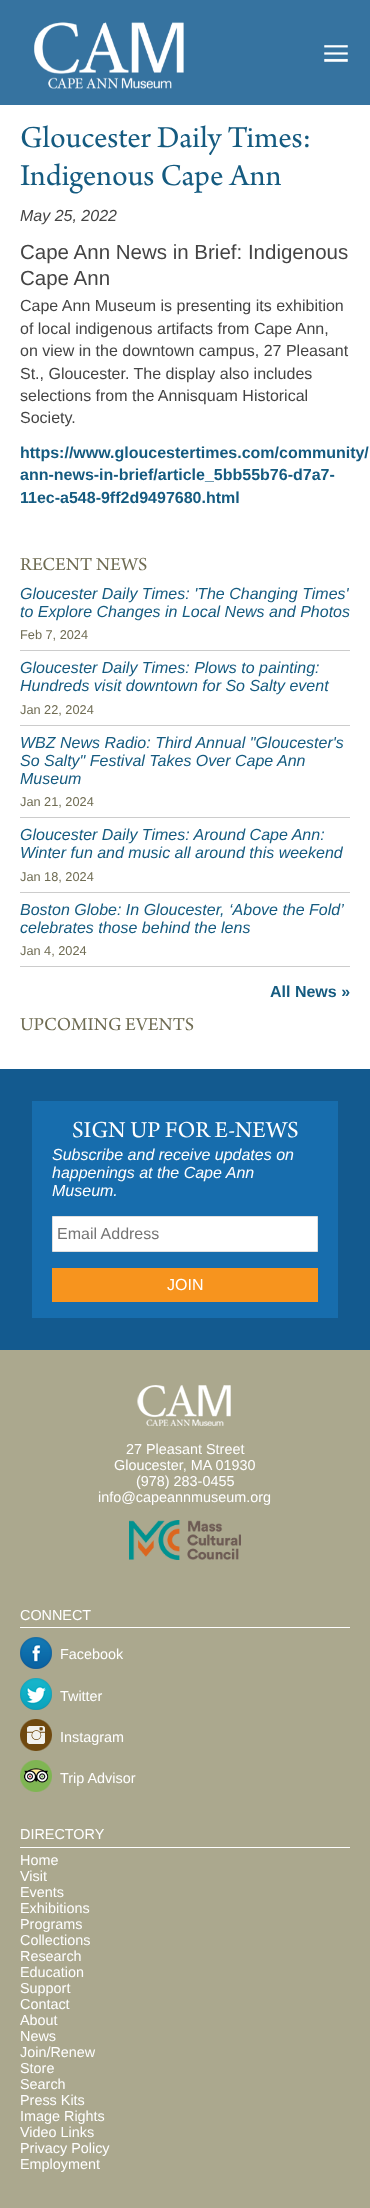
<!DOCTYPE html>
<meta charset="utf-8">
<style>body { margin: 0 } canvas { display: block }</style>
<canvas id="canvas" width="370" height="2208"></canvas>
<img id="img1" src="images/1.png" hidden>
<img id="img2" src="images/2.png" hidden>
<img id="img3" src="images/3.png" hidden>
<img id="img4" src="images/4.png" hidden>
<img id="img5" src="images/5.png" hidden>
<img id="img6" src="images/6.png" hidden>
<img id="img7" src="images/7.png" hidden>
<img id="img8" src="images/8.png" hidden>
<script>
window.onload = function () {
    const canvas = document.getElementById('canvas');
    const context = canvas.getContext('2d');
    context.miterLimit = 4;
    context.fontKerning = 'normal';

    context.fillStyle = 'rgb(255, 255, 255)';
    context.fillRect(0, 0, 370, 2208);
    context.fillStyle = 'rgb(54, 115, 160)';
    context.fillRect(0, 0, 370, 105);
    context.drawImage(document.getElementById('img1'), 34, 22, 150, 67);
    context.drawImage(document.getElementById('img2'), 324, 45, 24, 17);
    context.fillStyle = 'rgb(204, 204, 204)';
    context.fillRect(20, 650, 330, 1);
    context.fillRect(20, 725, 330, 1);
    context.fillRect(20, 817, 330, 1);
    context.fillRect(20, 892, 330, 1);
    context.fillRect(20, 966, 330, 1);
    context.fillStyle = 'rgb(19, 90, 143)';
    context.fillRect(0, 1069, 370, 281);
    context.fillStyle = 'rgb(23, 109, 173)';
    context.fillRect(32, 1101, 306, 217);
    context.fillStyle = 'rgb(255, 255, 255)';
    context.beginPath();
    context.rect(52.5, 1216.5, 265, 35);
    context.fill();
    context.strokeStyle = 'rgb(223, 223, 223)';
    context.stroke();
    context.fillStyle = 'rgb(247, 148, 30)';
    context.fillRect(52, 1268, 266, 34);
    context.fillStyle = 'rgb(171, 168, 142)';
    context.fillRect(0, 1350, 370, 858);
    context.drawImage(document.getElementById('img3'), 137, 1385, 94, 41);
    context.drawImage(document.getElementById('img4'), 129, 1520, 112, 40);
    context.fillStyle = 'rgb(255, 255, 255)';
    context.fillRect(20, 1627, 330, 1);
    context.drawImage(document.getElementById('img5'), 20, 1637, 32, 32);
    context.drawImage(document.getElementById('img6'), 20, 1678, 32, 32);
    context.drawImage(document.getElementById('img7'), 20, 1719, 32, 32);
    context.drawImage(document.getElementById('img8'), 20, 1760, 32, 32);
    context.fillRect(20, 1847, 330, 1);
    context.font = '32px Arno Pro';
    context.fillStyle = 'rgb(21, 91, 128)';
    context.fillText('Gloucester Daily Times:', 20, 147);
    context.fillText('Indigenous Cape Ann', 20, 185);
    context.font = 'italic 16px Liberation Sans';
    context.fillStyle = 'rgb(68, 68, 68)';
    context.fillText('May 25, 2022', 20, 221);
    context.font = '20.5px Liberation Sans';
    context.fillText('Cape Ann News in Brief: Indigenous', 20, 259);
    context.fillText('Cape Ann', 20, 285);
    context.font = '16px Liberation Sans';
    context.fillText('Cape Ann Museum is presenting its exhibition', 20, 311);
    context.fillText('of local indigenous artifacts from Cape Ann,', 20, 334);
    context.fillText('on view in the downtown campus, 27 Pleasant', 20, 356);
    context.fillText('St., Gloucester. The display also includes', 20, 379);
    context.fillText('selections from the Annisquam Historical', 20, 401);
    context.fillText('Society.', 20, 423);
    context.font = 'bold 16px Liberation Sans';
    context.fillStyle = 'rgb(21, 91, 128)';
    context.fillText('https://www.gloucestertimes.com/community/', 20, 458);
    context.fillText('ann-news-in-brief/article_5bb55b76-d7a7-', 20, 480);
    context.fillText('11ec-a548-9ff2d9497680.html', 20, 503);
    context.font = '19.25px Arno Pro';
    context.fillStyle = 'rgb(111, 108, 83)';
    context.fillText('RECENT NEWS', 20, 570);
    context.font = 'italic 16px Liberation Sans';
    context.fillStyle = 'rgb(21, 91, 128)';
    context.fillText('Gloucester Daily Times: \'The Changing Times\'', 20, 599);
    context.fillText('to Explore Changes in Local News and Photos', 20, 617);
    context.font = '12.75px Liberation Sans';
    context.fillStyle = 'rgb(111, 108, 83)';
    context.fillText('Feb 7, 2024', 20, 639);
    context.font = 'italic 16px Liberation Sans';
    context.fillStyle = 'rgb(21, 91, 128)';
    context.fillText('Gloucester Daily Times: Plows to painting:', 20, 673);
    context.fillText('Hundreds visit downtown for So Salty event', 20, 691);
    context.font = '12.75px Liberation Sans';
    context.fillStyle = 'rgb(111, 108, 83)';
    context.fillText('Jan 22, 2024', 20, 714);
    context.font = 'italic 16px Liberation Sans';
    context.fillStyle = 'rgb(21, 91, 128)';
    context.fillText('WBZ News Radio: Third Annual "Gloucester\'s', 20, 748);
    context.fillText('So Salty" Festival Takes Over Cape Ann', 20, 766);
    context.fillText('Museum', 20, 784);
    context.font = '12.75px Liberation Sans';
    context.fillStyle = 'rgb(111, 108, 83)';
    context.fillText('Jan 21, 2024', 20, 806);
    context.font = 'italic 16px Liberation Sans';
    context.fillStyle = 'rgb(21, 91, 128)';
    context.fillText('Gloucester Daily Times: Around Cape Ann:', 20, 840);
    context.fillText('Winter fun and music all around this weekend', 20, 858);
    context.font = '12.75px Liberation Sans';
    context.fillStyle = 'rgb(111, 108, 83)';
    context.fillText('Jan 18, 2024', 20, 881);
    context.font = 'italic 16px Liberation Sans';
    context.fillStyle = 'rgb(21, 91, 128)';
    context.fillText('Boston Globe: In Gloucester, ‘Above the Fold’', 20, 915);
    context.fillText('celebrates those behind the lens', 20, 933);
    context.font = '12.75px Liberation Sans';
    context.fillStyle = 'rgb(111, 108, 83)';
    context.fillText('Jan 4, 2024', 20, 955);
    context.font = 'bold 16px Liberation Sans';
    context.fillStyle = 'rgb(21, 91, 128)';
    context.fillText('All News »', 270, 997);
    context.font = '19.25px Arno Pro';
    context.fillStyle = 'rgb(111, 108, 83)';
    context.fillText('UPCOMING EVENTS', 20, 1030);
    context.font = '24px Arno Pro';
    context.fillStyle = 'rgb(255, 255, 255)';
    context.fillText('SIGN UP FOR E-NEWS', 72, 1137);
    context.font = 'italic 16px Liberation Sans';
    context.fillText('Subscribe and receive updates on', 52, 1160);
    context.fillText('happenings at the Cape Ann', 52, 1178);
    context.fillText('Museum.', 52, 1196);
    context.font = '16px Liberation Sans';
    context.fillStyle = 'rgb(117, 117, 117)';
    context.fillText('Email Address', 57, 1239);
    context.fillStyle = 'rgb(255, 255, 255)';
    context.fillText('JOIN', 167, 1290);
    context.font = '14.4px Liberation Sans';
    context.fillText('27 Pleasant Street', 126, 1454);
    context.fillText('Gloucester, MA 01930', 114, 1470);
    context.fillText('(978) 283-0455', 136, 1486);
    context.fillText('info@capeannmuseum.org', 98, 1502);
    context.fillText('CONNECT', 20, 1620);
    context.fillText('Facebook', 60, 1659);
    context.fillText('Twitter', 60, 1701);
    context.fillText('Instagram', 60, 1742);
    context.fillText('Trip Advisor', 60, 1783);
    context.fillText('DIRECTORY', 20, 1839);
    context.fillText('Home', 20, 1865);
    context.fillText('Visit', 20, 1881);
    context.fillText('Events', 20, 1897);
    context.fillText('Exhibitions', 20, 1913);
    context.fillText('Programs', 20, 1929);
    context.fillText('Collections', 20, 1945);
    context.fillText('Research', 20, 1961);
    context.fillText('Education', 20, 1977);
    context.fillText('Support', 20, 1993);
    context.fillText('Contact', 20, 2009);
    context.fillText('About', 20, 2025);
    context.fillText('News', 20, 2041);
    context.fillText('Join/Renew', 20, 2057);
    context.fillText('Store', 20, 2073);
    context.fillText('Search', 20, 2089);
    context.fillText('Press Kits', 20, 2105);
    context.fillText('Image Rights', 20, 2121);
    context.fillText('Video Links', 20, 2137);
    context.fillText('Privacy Policy', 20, 2153);
    context.fillText('Employment', 20, 2169);
};
</script>
